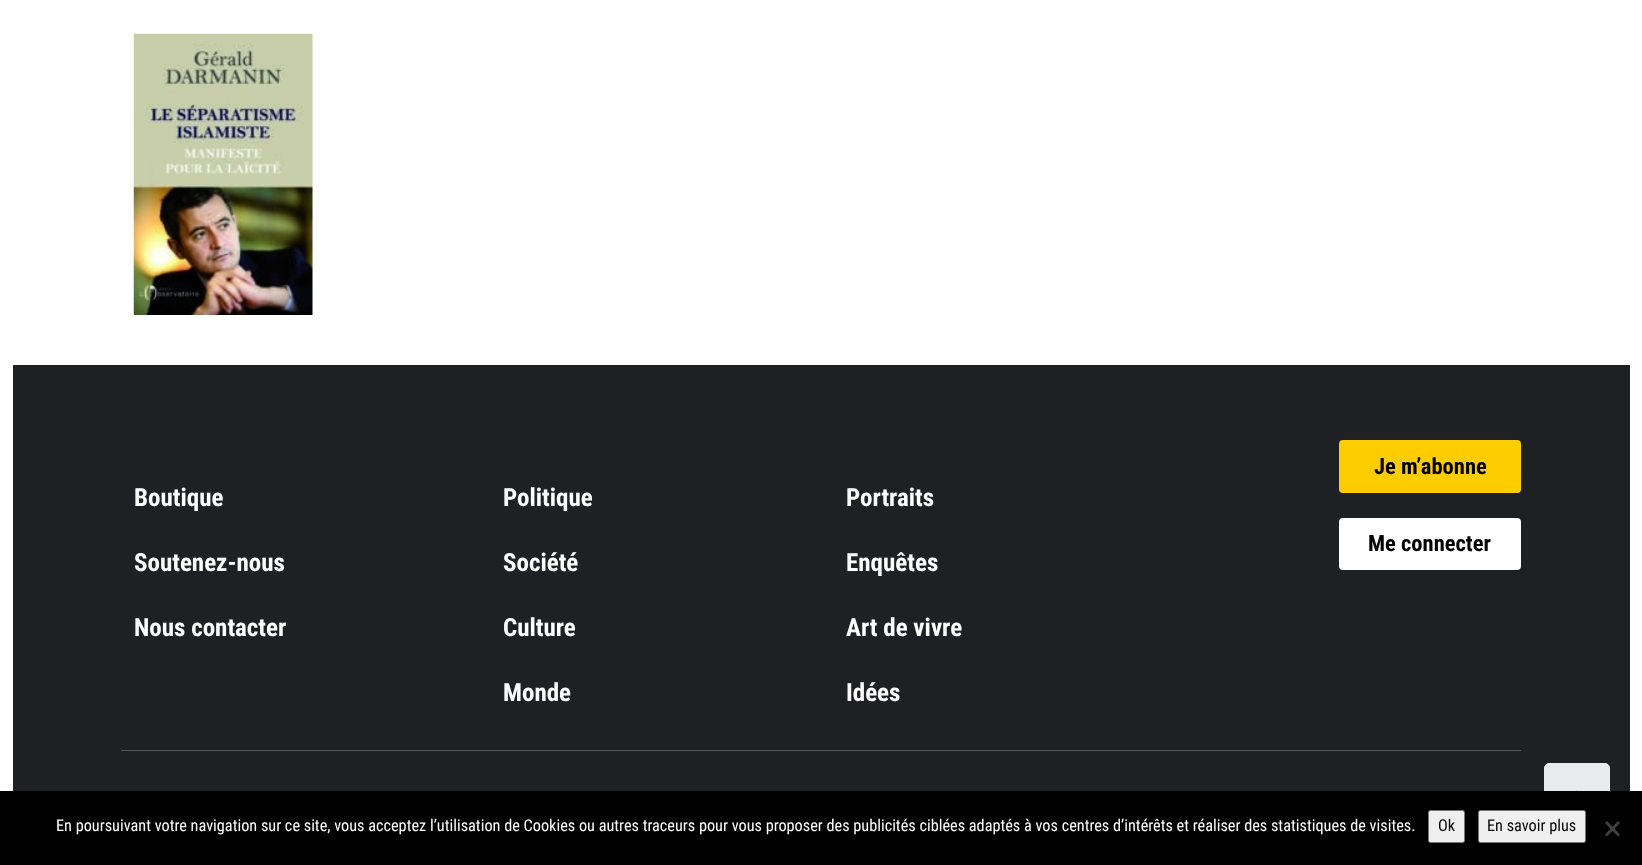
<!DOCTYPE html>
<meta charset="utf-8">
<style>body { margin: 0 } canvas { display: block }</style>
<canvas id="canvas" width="1642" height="865"></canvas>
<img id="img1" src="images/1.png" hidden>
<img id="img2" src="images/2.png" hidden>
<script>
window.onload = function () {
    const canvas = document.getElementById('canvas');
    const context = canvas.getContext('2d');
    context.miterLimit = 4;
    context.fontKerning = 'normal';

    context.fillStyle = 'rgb(255, 255, 255)';
    context.fillRect(0, 0, 1642, 865);
    context.drawImage(document.getElementById('img1'), 133, 33, 180, 282);
    context.fillStyle = 'rgb(31, 32, 36)';
    context.fillRect(13, 365, 1617, 426);
    context.fillStyle = 'rgb(253, 205, 0)';
    context.beginPath();
    context.roundRect(1339, 440, 182, 53, 4);
    context.fill();
    context.fillStyle = 'rgb(255, 255, 255)';
    context.beginPath();
    context.roundRect(1339, 518, 182, 52, 4);
    context.fill();
    context.fillStyle = 'rgb(87, 88, 91)';
    context.fillRect(121, 750, 1400, 1);
    context.fillStyle = 'rgb(233, 236, 239)';
    context.beginPath();
    context.roundRect(1544.5, 763.5, 65, 69, 4.5);
    context.fill();
    context.strokeStyle = 'rgb(233, 236, 239)';
    context.stroke();
    context.drawImage(document.getElementById('img2'), 1576, 790, 2, 1);
    context.fillStyle = 'rgb(0, 0, 0)';
    context.fillRect(0, 791, 1642, 74);
    context.fillStyle = 'rgb(239, 239, 239)';
    context.beginPath();
    context.roundRect(1428.5, 810.5, 36, 32, 2);
    context.fill();
    context.strokeStyle = 'rgb(118, 118, 118)';
    context.stroke();
    context.beginPath();
    context.roundRect(1478.5, 810.5, 107, 32, 2);
    context.fill();
    context.stroke();
    context.fillStyle = 'rgb(64, 64, 64)';
    context.beginPath();
    context.moveTo(1618, 821);
    context.lineTo(1620, 823);
    context.lineTo(1607, 836.5);
    context.lineTo(1605, 834.5);
    context.closePath();
    context.fill();
    context.beginPath();
    context.moveTo(1605, 823);
    context.lineTo(1607, 821);
    context.lineTo(1620, 834.5);
    context.lineTo(1618, 836.5);
    context.closePath();
    context.fill();
    context.font = 'bold 25px Roboto Condensed';
    context.fillStyle = 'rgb(255, 255, 255)';
    context.fillText('Boutique', 134, 506);
    context.fillText('Soutenez-nous', 134, 571);
    context.fillText('Nous contacter', 134, 636);
    context.fillText('Politique', 503, 506);
    context.fillText('Société', 503, 571);
    context.fillText('Culture', 503, 636);
    context.fillText('Monde', 503, 701);
    context.fillText('Portraits', 846, 506);
    context.fillText('Enquêtes', 846, 571);
    context.fillText('Art de vivre', 846, 636);
    context.fillText('Idées', 846, 701);
    context.font = 'bold 22.5px Roboto Condensed';
    context.fillStyle = 'rgb(0, 0, 0)';
    context.fillText('Je m’abonne', 1374, 474);
    context.fillText('Me connecter', 1368, 551);
    context.font = '16.25px Roboto Condensed';
    context.fillStyle = 'rgb(255, 255, 255)';
    context.fillText('En poursuivant votre navigation sur ce site, vous acceptez l’utilisation de Cookies ou autres traceurs pour vous proposer des publicités ciblées adaptés à vos centres d’intérêts et réaliser des statistiques de visites.', 56, 831);
    context.fillStyle = 'rgb(0, 0, 0)';
    context.fillText('Ok', 1438, 831);
    context.fillText('En savoir plus', 1487, 831);
};
</script>
